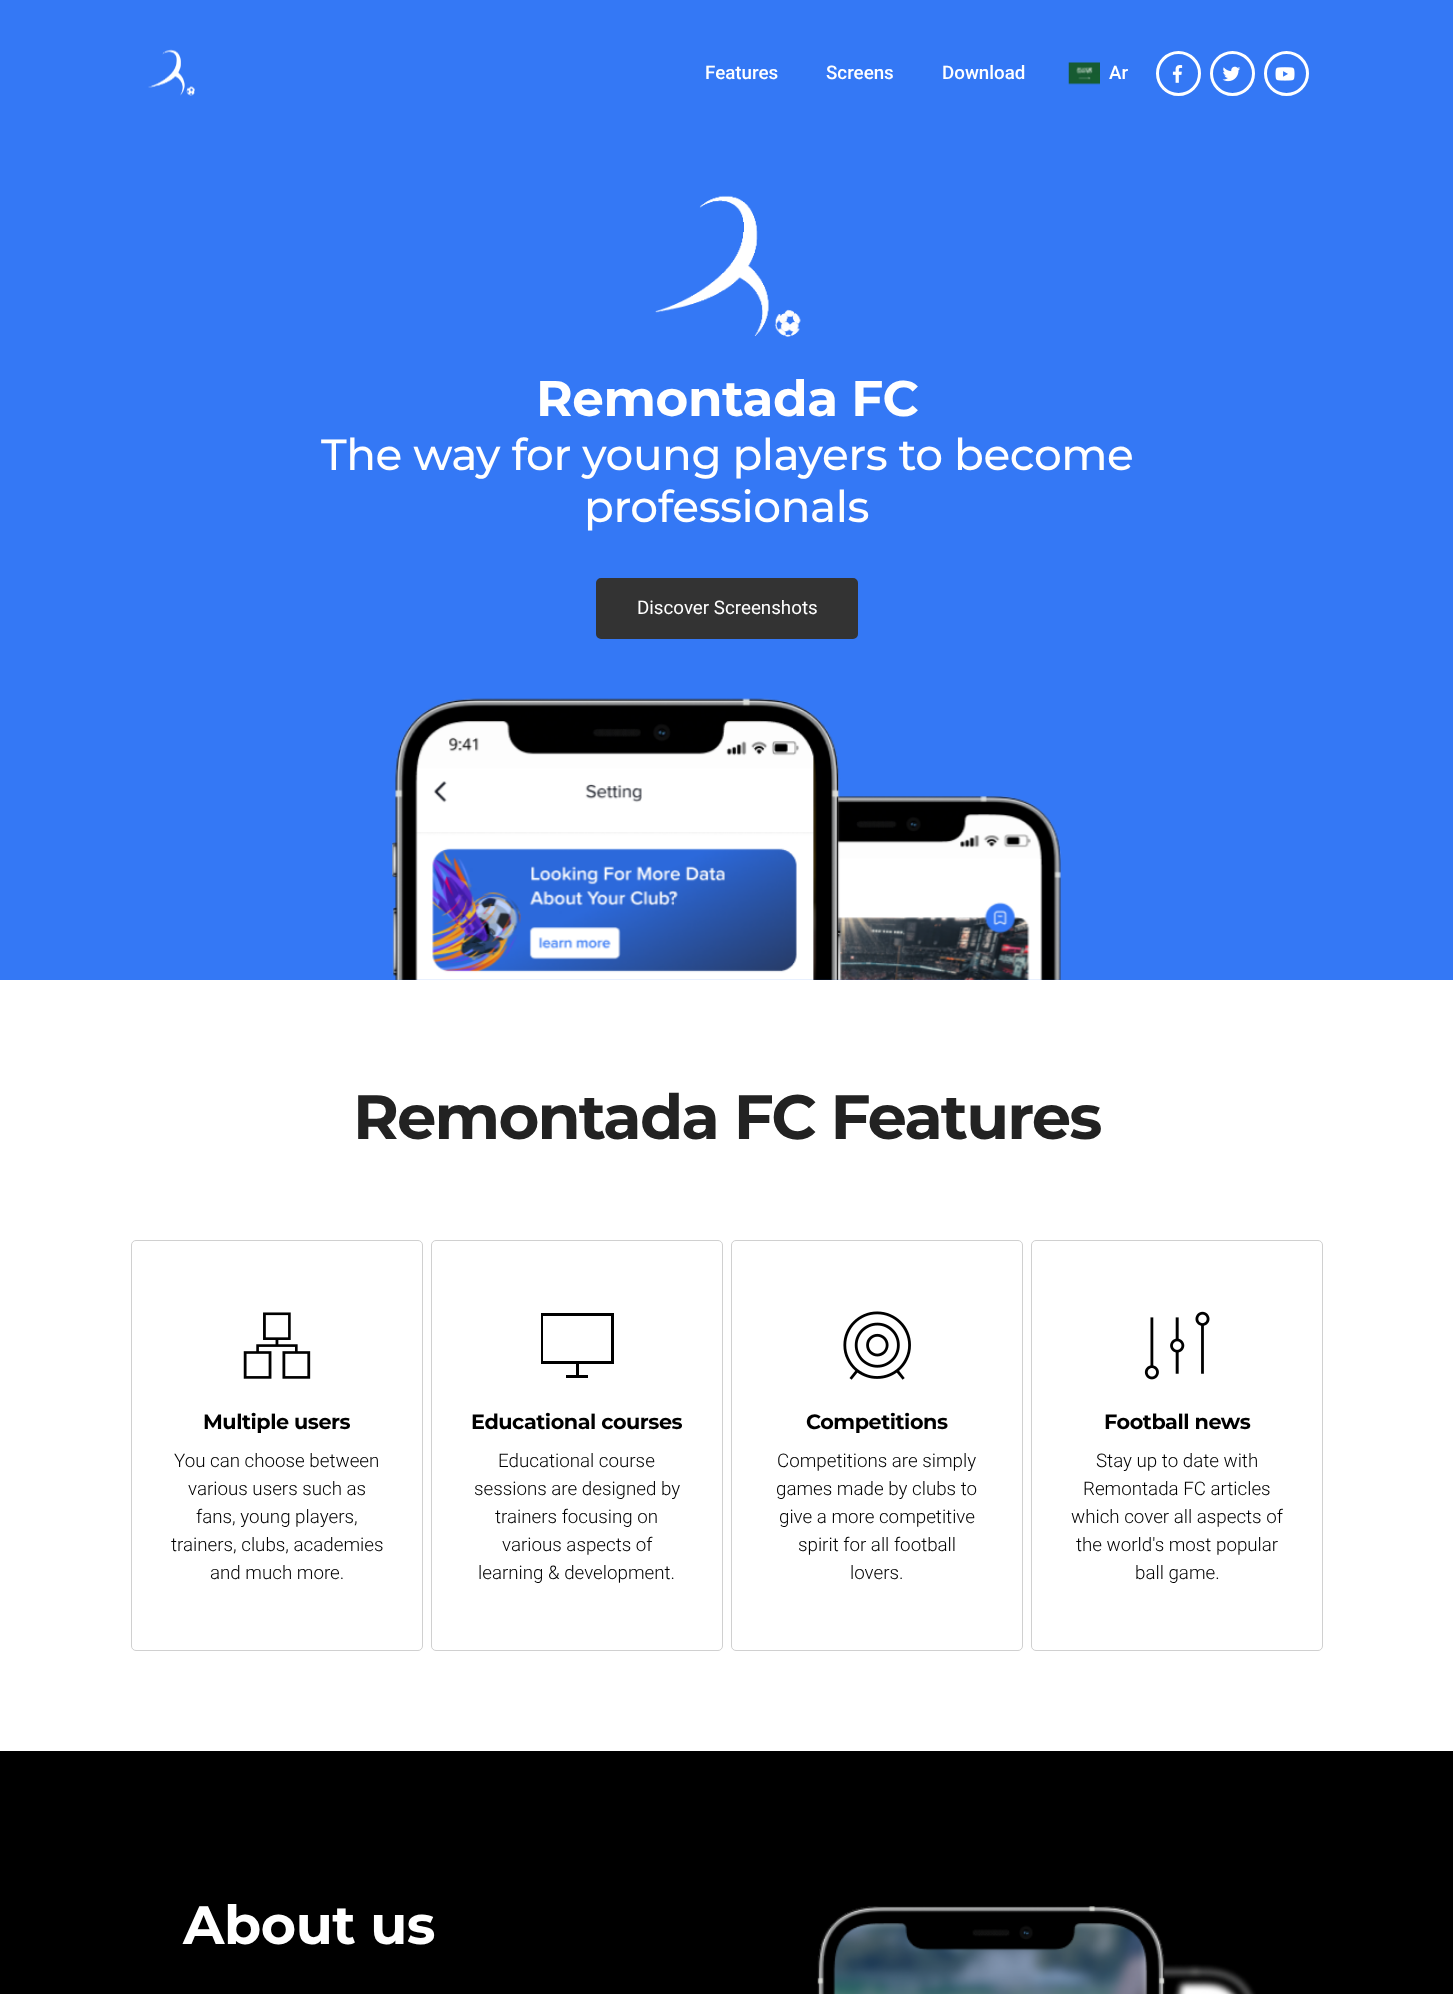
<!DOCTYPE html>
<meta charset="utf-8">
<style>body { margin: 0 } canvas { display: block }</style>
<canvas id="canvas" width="1453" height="1994"></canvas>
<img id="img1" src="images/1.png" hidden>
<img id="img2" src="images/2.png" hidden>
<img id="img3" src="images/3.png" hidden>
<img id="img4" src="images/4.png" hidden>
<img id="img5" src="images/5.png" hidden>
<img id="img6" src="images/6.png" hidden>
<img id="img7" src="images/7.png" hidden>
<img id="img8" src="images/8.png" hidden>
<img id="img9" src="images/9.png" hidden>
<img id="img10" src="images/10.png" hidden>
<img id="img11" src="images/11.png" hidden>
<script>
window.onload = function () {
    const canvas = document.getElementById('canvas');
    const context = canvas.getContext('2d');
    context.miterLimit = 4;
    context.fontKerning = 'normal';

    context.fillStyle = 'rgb(255, 255, 255)';
    context.fillRect(0, 0, 1453, 1994);
    context.fillStyle = 'rgb(52, 120, 245)';
    context.fillRect(0, 0, 1453, 980);
    context.drawImage(document.getElementById('img1'), 148, 49, 47, 47);
    context.drawImage(document.getElementById('img2'), 1068, 62, 32, 23);
    context.beginPath();
    context.arc(1178.5, 73.5, 21, 0, 2 * Math.PI);
    context.strokeStyle = 'rgb(255, 255, 255)';
    context.lineWidth = 3;
    context.stroke();
    context.drawImage(document.getElementById('img3'), 1172, 65, 11, 18);
    context.beginPath();
    context.arc(1232.5, 73.5, 21, 0, 2 * Math.PI);
    context.stroke();
    context.drawImage(document.getElementById('img4'), 1222, 66, 19, 16);
    context.beginPath();
    context.arc(1286.5, 73.5, 21, 0, 2 * Math.PI);
    context.stroke();
    context.drawImage(document.getElementById('img5'), 1275, 67, 20, 14);
    context.drawImage(document.getElementById('img6'), 655, 195, 146, 142);
    context.fillStyle = 'rgb(51, 51, 51)';
    context.beginPath();
    context.roundRect(597.5, 579.5, 259, 58, 3.5);
    context.fill();
    context.strokeStyle = 'rgb(51, 51, 51)';
    context.stroke();
    context.drawImage(document.getElementById('img7'), 392, 698, 669, 282);
    context.beginPath();
    context.roundRect(131.5, 1240.5, 291, 410, 4.5);
    context.strokeStyle = 'rgb(208, 208, 208)';
    context.lineWidth = 1;
    context.stroke();
    context.drawImage(document.getElementById('img8'), 243, 1312, 68, 67);
    context.beginPath();
    context.roundRect(431.5, 1240.5, 291, 410, 4.5);
    context.stroke();
    context.fillStyle = 'rgb(0, 0, 0)';
    context.beginPath();
    context.moveTo(614, 1364);
    context.lineTo(614, 1313);
    context.lineTo(541, 1313);
    context.lineTo(541, 1364);
    context.lineTo(576, 1364);
    context.lineTo(576, 1375);
    context.lineTo(566, 1375);
    context.lineTo(566, 1378);
    context.lineTo(588, 1378);
    context.lineTo(588, 1375);
    context.lineTo(579, 1375);
    context.lineTo(579, 1364);
    context.closePath();
    context.moveTo(543, 1316);
    context.lineTo(611, 1316);
    context.lineTo(611, 1361);
    context.lineTo(543, 1361);
    context.closePath();
    context.fill();
    context.beginPath();
    context.roundRect(731.5, 1240.5, 291, 410, 4.5);
    context.stroke();
    context.drawImage(document.getElementById('img9'), 843, 1311, 68, 69);
    context.beginPath();
    context.roundRect(1031.5, 1240.5, 291, 410, 4.5);
    context.stroke();
    context.drawImage(document.getElementById('img10'), 1144, 1311, 66, 69);
    context.fillRect(0, 1751, 1453, 243);
    context.drawImage(document.getElementById('img11'), 817, 1906, 439, 88);
    context.font = '500 18.75px Roboto';
    context.fillStyle = 'rgb(255, 255, 255)';
    context.fillText('Features', 705, 79);
    context.fillText('Screens', 826, 79);
    context.fillText('Download', 942, 79);
    context.fillText('Ar', 1109, 79);
    context.letterSpacing = '-0.45px';
    context.font = 'bold 50px Montserrat';
    context.fillText('Remontada FC', 536, 416);
    context.font = '500 43.75px Montserrat';
    context.fillText('The way for young players to become', 321, 470);
    context.fillText('professionals', 584, 522);
    context.letterSpacing = '0px';
    context.font = '18.75px Roboto';
    context.fillText('Discover Screenshots', 637, 614);
    context.letterSpacing = '-1.9px';
    context.font = 'bold 62.5px Montserrat';
    context.fillStyle = 'rgb(34, 34, 34)';
    context.fillText('Remontada FC Features', 353, 1139);
    context.letterSpacing = '-0.45px';
    context.font = 'bold 20.75px Montserrat';
    context.fillStyle = 'rgb(0, 0, 0)';
    context.fillText('Multiple users', 203, 1429);
    context.letterSpacing = '0px';
    context.font = '300 18.75px Roboto';
    context.fillText('You can choose between', 174, 1467);
    context.fillText('various users such as', 188, 1495);
    context.fillText('fans, young players,', 196, 1523);
    context.fillText('trainers, clubs, academies', 171, 1551);
    context.fillText('and much more.', 210, 1579);
    context.letterSpacing = '-0.45px';
    context.font = 'bold 20.75px Montserrat';
    context.fillText('Educational courses', 471, 1429);
    context.letterSpacing = '0px';
    context.font = '300 18.75px Roboto';
    context.fillText('Educational course', 498, 1467);
    context.fillText('sessions are designed by', 474, 1495);
    context.fillText('trainers focusing on', 495, 1523);
    context.fillText('various aspects of', 502, 1551);
    context.fillText('learning & development.', 478, 1579);
    context.letterSpacing = '-0.45px';
    context.font = 'bold 20.75px Montserrat';
    context.fillText('Competitions', 806, 1429);
    context.letterSpacing = '0px';
    context.font = '300 18.75px Roboto';
    context.fillText('Competitions are simply', 777, 1467);
    context.fillText('games made by clubs to', 776, 1495);
    context.fillText('give a more competitive', 779, 1523);
    context.fillText('spirit for all football', 798, 1551);
    context.fillText('lovers.', 850, 1579);
    context.letterSpacing = '-0.45px';
    context.font = 'bold 20.75px Montserrat';
    context.fillText('Football news', 1104, 1429);
    context.letterSpacing = '0px';
    context.font = '300 18.75px Roboto';
    context.fillText('Stay up to date with', 1096, 1467);
    context.fillText('Remontada FC articles', 1083, 1495);
    context.fillText('which cover all aspects of', 1071, 1523);
    context.fillText('the world\'s most popular', 1076, 1551);
    context.fillText('ball game.', 1135, 1579);
    context.letterSpacing = '-0.45px';
    context.font = 'bold 54px Montserrat';
    context.fillStyle = 'rgb(255, 255, 255)';
    context.fillText('About us', 183, 1944);
};
</script>
